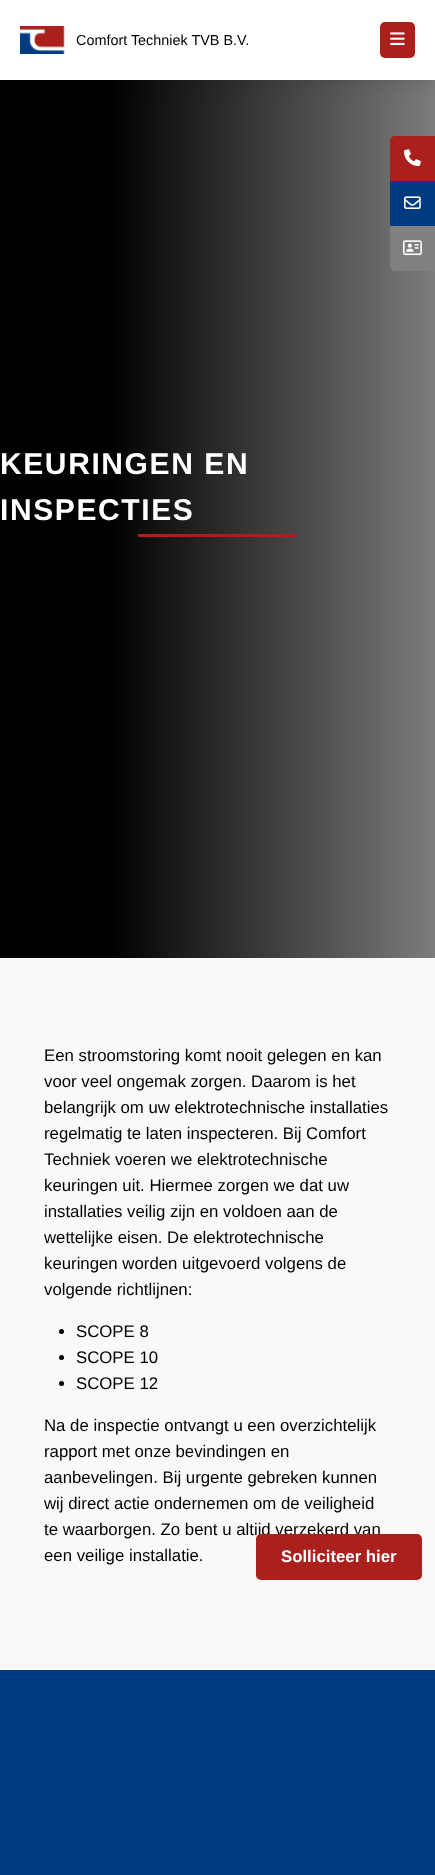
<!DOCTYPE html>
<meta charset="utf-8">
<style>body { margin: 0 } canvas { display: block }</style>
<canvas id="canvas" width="435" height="1875"></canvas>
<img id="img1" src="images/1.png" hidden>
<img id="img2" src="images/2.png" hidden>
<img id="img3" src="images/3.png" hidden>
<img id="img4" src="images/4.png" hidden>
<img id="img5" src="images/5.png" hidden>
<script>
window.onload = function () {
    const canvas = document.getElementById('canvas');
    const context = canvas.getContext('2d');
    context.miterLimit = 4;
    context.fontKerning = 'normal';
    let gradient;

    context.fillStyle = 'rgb(249, 249, 249)';
    context.fillRect(0, 0, 435, 1875);
    gradient = context.createLinearGradient(0, 489, 435, 489);
    gradient.addColorStop(0, 'rgb(0, 0, 0)');
    gradient.addColorStop(0.25, 'rgb(0, 0, 0)');
    gradient.addColorStop(1, 'rgb(124, 124, 124)');
    context.fillStyle = gradient;
    context.fillRect(0, 80, 435, 878);
    context.fillStyle = 'rgba(0, 0, 0, 0.1)';
    context.filter = 'blur(8.5px)';
    context.beginPath();
    context.rect(0, 4, 435, 80);
    context.fill();
    context.filter = 'none';
    context.fillStyle = 'rgb(255, 255, 255)';
    context.fillRect(0, 0, 435, 80);
    context.drawImage(document.getElementById('img1'), 20, 26, 45, 28);
    context.fillStyle = 'rgb(171, 31, 28)';
    context.beginPath();
    context.roundRect(380, 22, 35, 36, 5);
    context.fill();
    context.drawImage(document.getElementById('img2'), 390, 32, 15, 13);
    context.beginPath();
    context.roundRect(390, 136, 45, 45, [5, 0, 0, 0]);
    context.fill();
    context.drawImage(document.getElementById('img3'), 404, 149, 17, 18);
    context.fillStyle = 'rgb(0, 59, 128)';
    context.fillRect(390, 181, 45, 45);
    context.drawImage(document.getElementById('img4'), 404, 196, 17, 13);
    context.fillStyle = 'rgb(128, 128, 128)';
    context.beginPath();
    context.roundRect(390, 226, 45, 45, [0, 0, 0, 5]);
    context.fill();
    context.drawImage(document.getElementById('img5'), 403, 240, 19, 16);
    context.fillStyle = 'rgb(171, 31, 28)';
    context.fillRect(138, 534, 159, 3);
    context.fillStyle = 'rgb(0, 0, 0)';
    context.beginPath();
    context.arc(61.5, 1331.5, 2.5, 0, 2 * Math.PI);
    context.fill();
    context.beginPath();
    context.arc(61.5, 1357.5, 2.5, 0, 2 * Math.PI);
    context.fill();
    context.beginPath();
    context.arc(61.5, 1383.5, 2.5, 0, 2 * Math.PI);
    context.fill();
    context.fillStyle = 'rgb(0, 59, 128)';
    context.fillRect(0, 1670, 435, 205);
    context.font = '14.4px Liberation Sans';
    context.fillStyle = 'rgb(0, 0, 0)';
    context.fillText('Comfort Techniek TVB B.V.', 76, 45);
    context.letterSpacing = '1.6px';
    context.font = 'bold 30px Liberation Sans';
    context.fillStyle = 'rgb(255, 255, 255)';
    context.fillText('KEURINGEN EN', 0, 474);
    context.fillText('INSPECTIES', 0, 520);
    context.letterSpacing = '0px';
    context.font = '16.8px Liberation Sans';
    context.fillStyle = 'rgb(0, 0, 0)';
    context.fillText('Een stroomstoring komt nooit gelegen en kan', 44, 1061);
    context.fillText('voor veel ongemak zorgen. Daarom is het', 44, 1087);
    context.fillText('belangrijk om uw elektrotechnische installaties', 44, 1113);
    context.fillText('regelmatig te laten inspecteren. Bij Comfort', 44, 1139);
    context.fillText('Techniek voeren we elektrotechnische', 44, 1165);
    context.fillText('keuringen uit. Hiermee zorgen we dat uw', 44, 1191);
    context.fillText('installaties veilig zijn en voldoen aan de', 44, 1217);
    context.fillText('wettelijke eisen. De elektrotechnische', 44, 1243);
    context.fillText('keuringen worden uitgevoerd volgens de', 44, 1269);
    context.fillText('volgende richtlijnen:', 44, 1295);
    context.fillText('SCOPE 8', 76, 1337);
    context.fillText('SCOPE 10', 76, 1363);
    context.fillText('SCOPE 12', 76, 1389);
    context.fillText('Na de inspectie ontvangt u een overzichtelijk', 44, 1431);
    context.fillText('rapport met onze bevindingen en', 44, 1457);
    context.fillText('aanbevelingen. Bij urgente gebreken kunnen', 44, 1483);
    context.fillText('wij direct actie ondernemen om de veiligheid', 44, 1509);
    context.fillText('te waarborgen. Zo bent u altijd verzekerd van', 44, 1535);
    context.fillStyle = 'rgb(171, 31, 28)';
    context.beginPath();
    context.roundRect(256, 1534, 166, 46, 5);
    context.fill();
    context.font = 'bold 16.8px Liberation Sans';
    context.fillStyle = 'rgb(255, 255, 255)';
    context.fillText('Solliciteer hier', 281, 1562);
    context.font = '16.8px Liberation Sans';
    context.fillStyle = 'rgb(0, 0, 0)';
    context.fillText('een veilige installatie.', 44, 1561);
};
</script>
